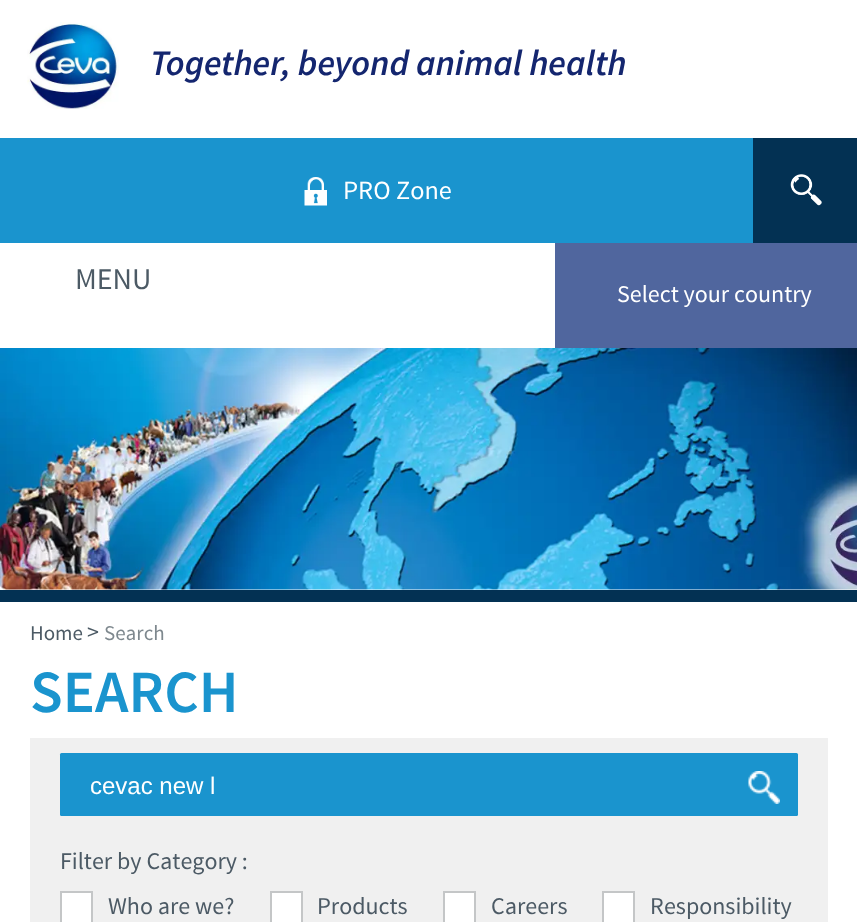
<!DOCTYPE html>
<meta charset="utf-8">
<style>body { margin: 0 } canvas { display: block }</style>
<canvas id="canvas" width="857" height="922"></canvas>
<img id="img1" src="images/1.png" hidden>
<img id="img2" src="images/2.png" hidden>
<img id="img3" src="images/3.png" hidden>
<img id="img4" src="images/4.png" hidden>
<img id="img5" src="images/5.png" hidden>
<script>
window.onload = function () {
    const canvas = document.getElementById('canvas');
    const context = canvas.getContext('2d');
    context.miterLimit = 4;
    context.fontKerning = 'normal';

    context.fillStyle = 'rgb(255, 255, 255)';
    context.fillRect(0, 0, 857, 922);
    context.drawImage(document.getElementById('img1'), 27, 22, 92, 87);
    context.fillStyle = 'rgb(26, 148, 206)';
    context.fillRect(0, 138, 753, 105);
    context.drawImage(document.getElementById('img2'), 304, 177, 23, 29);
    context.fillStyle = 'rgb(3, 49, 83)';
    context.fillRect(753, 138, 104, 105);
    context.drawImage(document.getElementById('img3'), 790, 174, 32, 32);
    context.fillStyle = 'rgb(80, 102, 158)';
    context.fillRect(555, 243, 302, 105);
    context.fillStyle = 'rgb(3, 49, 83)';
    context.fillRect(0, 590, 857, 12);
    context.drawImage(document.getElementById('img4'), 0, 348, 857, 242);
    context.fillStyle = 'rgb(240, 240, 240)';
    context.fillRect(30, 738, 798, 184);
    context.fillStyle = 'rgb(26, 148, 206)';
    context.beginPath();
    context.roundRect(60, 753, 738, 63, 1.5);
    context.fill();
    context.drawImage(document.getElementById('img5'), 748, 771, 32, 33);
    context.fillStyle = 'rgb(255, 255, 255)';
    context.beginPath();
    context.rect(61, 892, 31, 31);
    context.fill();
    context.strokeStyle = 'rgb(196, 198, 199)';
    context.lineWidth = 2;
    context.stroke();
    context.beginPath();
    context.rect(271, 892, 31, 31);
    context.fill();
    context.stroke();
    context.beginPath();
    context.rect(444, 892, 31, 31);
    context.fill();
    context.stroke();
    context.beginPath();
    context.rect(603, 892, 31, 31);
    context.fill();
    context.stroke();
    context.font = 'italic 600 36px Source Sans Pro';
    context.fillStyle = 'rgb(20, 38, 111)';
    context.fillText('Together, beyond animal health', 150, 75);
    context.font = '26.25px Source Sans Pro';
    context.fillStyle = 'rgb(255, 255, 255)';
    context.fillText('PRO Zone', 343, 199);
    context.font = '30px Source Sans Pro';
    context.fillStyle = 'rgb(76, 90, 101)';
    context.fillText('MENU', 75, 289);
    context.font = '24px Source Sans Pro';
    context.fillStyle = 'rgb(255, 255, 255)';
    context.fillText('Select your country', 617, 302);
    context.font = '21px Source Sans Pro';
    context.fillStyle = 'rgb(76, 90, 101)';
    context.fillText('Home', 30, 640);
    context.font = '24px Source Sans Pro';
    context.fillText('>', 87, 640);
    context.font = '21px Source Sans Pro';
    context.fillStyle = 'rgb(126, 136, 142)';
    context.fillText('Search', 104, 640);
    context.font = '600 60px Source Sans Pro';
    context.fillStyle = 'rgb(26, 148, 206)';
    context.fillText('SEARCH', 30, 712);
    context.font = '24px Liberation Sans';
    context.fillStyle = 'rgb(255, 255, 255)';
    context.fillText('cevac new l', 90, 794);
    context.font = '24px Source Sans Pro';
    context.fillStyle = 'rgb(76, 90, 101)';
    context.fillText('Filter by Category :', 60, 869);
    context.fillText('Who are we?', 108, 914);
    context.fillText('Products', 317, 914);
    context.fillText('Careers', 491, 914);
    context.fillText('Responsibility', 650, 914);
};
</script>
